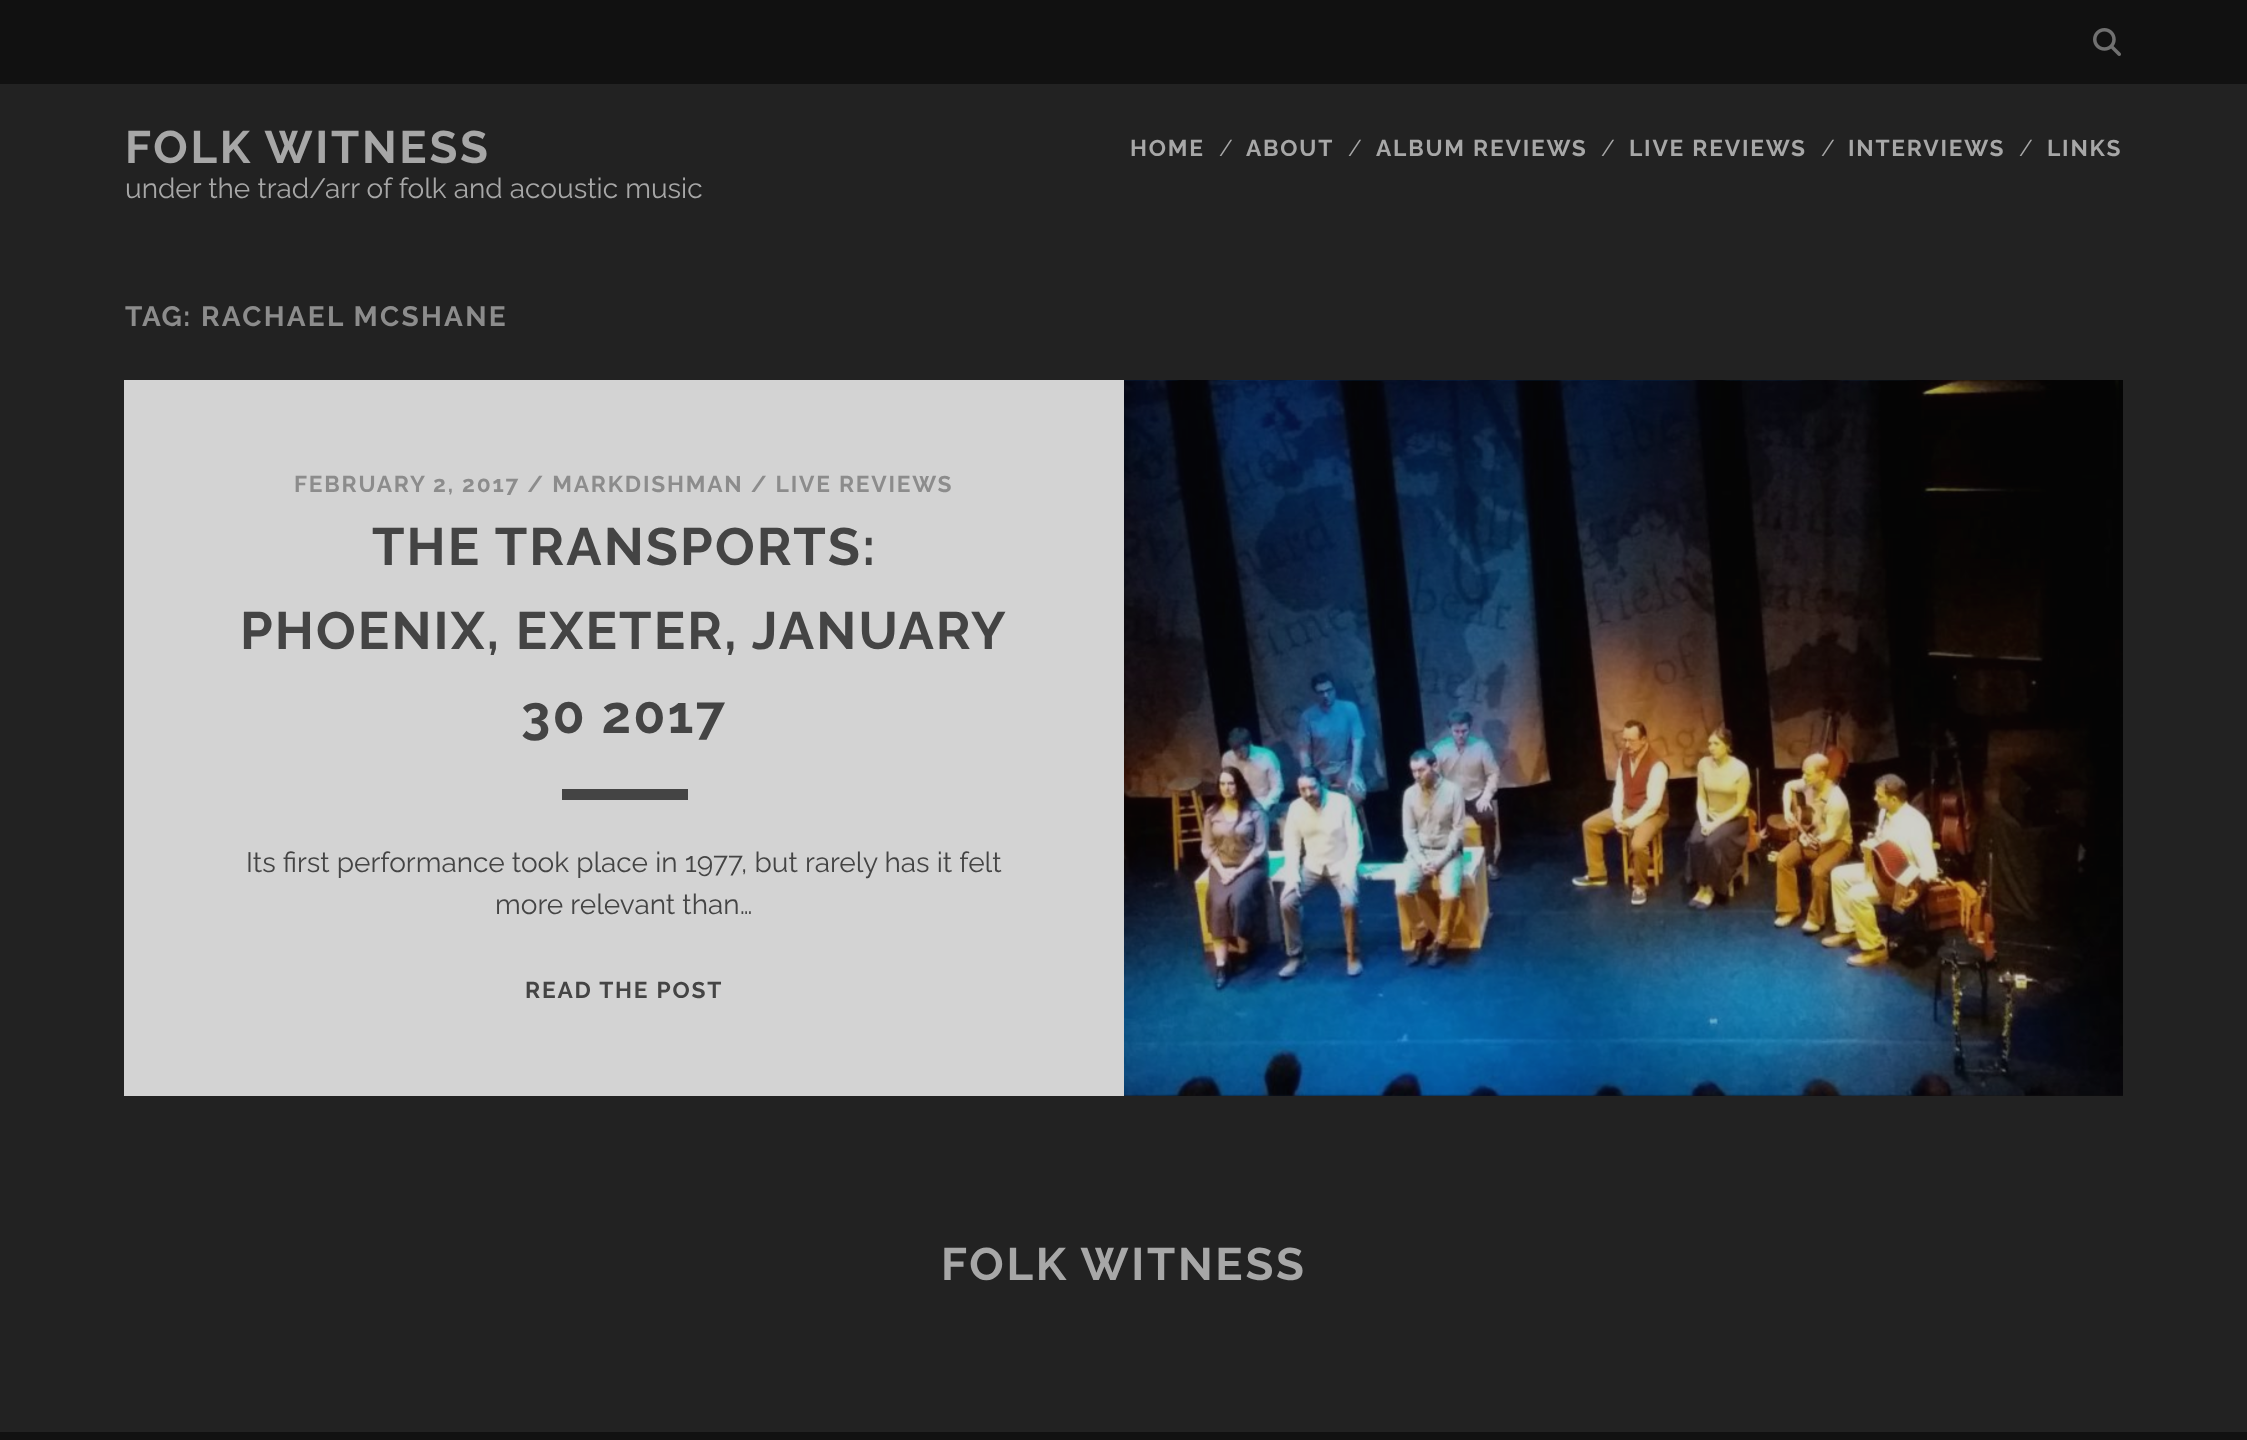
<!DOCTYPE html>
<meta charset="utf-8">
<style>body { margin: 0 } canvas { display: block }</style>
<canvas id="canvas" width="2247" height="1440"></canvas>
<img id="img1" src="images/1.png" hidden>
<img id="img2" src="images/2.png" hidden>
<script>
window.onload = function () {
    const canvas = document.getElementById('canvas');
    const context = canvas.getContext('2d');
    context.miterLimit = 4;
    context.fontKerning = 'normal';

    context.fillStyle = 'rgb(34, 34, 34)';
    context.fillRect(0, 0, 2247, 1440);
    context.fillStyle = 'rgb(17, 17, 17)';
    context.fillRect(0, 0, 2247, 84);
    context.drawImage(document.getElementById('img1'), 2093, 28, 28, 28);
    context.fillStyle = 'rgb(20, 20, 20)';
    context.fillRect(1124, 380, 999, 716);
    context.fillStyle = 'rgb(211, 211, 211)';
    context.fillRect(124, 380, 1000, 716);
    context.fillStyle = 'rgb(68, 68, 68)';
    context.fillRect(562, 789, 126, 11);
    context.drawImage(document.getElementById('img2'), 1124, 380, 999, 716);
    context.fillStyle = 'rgb(17, 17, 17)';
    context.fillRect(0, 1432, 2247, 8);
    context.letterSpacing = '2.75px';
    context.font = 'bold 45.5px Raleway';
    context.fillStyle = 'rgb(167, 167, 167)';
    context.fillText('FOLK WITNESS', 125, 163);
    context.letterSpacing = '1.8px';
    context.font = 'bold 22.75px Raleway';
    context.fillText('HOME', 1130, 156);
    context.letterSpacing = '0px';
    context.font = '22.75px Raleway';
    context.fillText('/', 1219, 156);
    context.letterSpacing = '1.8px';
    context.font = 'bold 22.75px Raleway';
    context.fillText('ABOUT', 1246, 156);
    context.letterSpacing = '0px';
    context.font = '22.75px Raleway';
    context.fillText('/', 1348, 156);
    context.letterSpacing = '1.8px';
    context.font = 'bold 22.75px Raleway';
    context.fillText('ALBUM REVIEWS', 1376, 156);
    context.letterSpacing = '0px';
    context.font = '22.75px Raleway';
    context.fillText('/', 1601, 156);
    context.letterSpacing = '1.8px';
    context.font = 'bold 22.75px Raleway';
    context.fillText('LIVE REVIEWS', 1629, 156);
    context.letterSpacing = '0px';
    context.font = '22.75px Raleway';
    context.fillText('/', 1821, 156);
    context.letterSpacing = '1.8px';
    context.font = 'bold 22.75px Raleway';
    context.fillText('INTERVIEWS', 1848, 156);
    context.letterSpacing = '0px';
    context.font = '22.75px Raleway';
    context.fillText('/', 2019, 156);
    context.letterSpacing = '1.8px';
    context.font = 'bold 22.75px Raleway';
    context.fillText('LINKS', 2047, 156);
    context.letterSpacing = '0px';
    context.font = '28px Raleway';
    context.fillText('under the trad/arr of folk and acoustic music', 125, 198);
    context.letterSpacing = '1.5px';
    context.font = 'bold 28px Raleway';
    context.fillStyle = 'rgb(140, 140, 140)';
    context.fillText('TAG:', 125, 326);
    context.letterSpacing = '2.25px';
    context.fillText('RACHAEL MCSHANE', 201, 326);
    context.letterSpacing = '1.8px';
    context.font = 'bold 22.75px Raleway';
    context.fillText('FEBRUARY 2, 2017 / MARKDISHMAN / LIVE REVIEWS', 294, 492);
    context.letterSpacing = '2.1px';
    context.font = 'bold 52.5px Raleway';
    context.fillStyle = 'rgb(68, 68, 68)';
    context.fillText('THE TRANSPORTS:', 372, 565);
    context.fillText('PHOENIX, EXETER, JANUARY', 240, 649);
    context.fillText('30 2017', 521, 733);
    context.letterSpacing = '0px';
    context.font = '28px Raleway';
    context.fillText('Its first performance took place in 1977, but rarely has it felt', 246, 872);
    context.fillText('more relevant than…', 495, 914);
    context.letterSpacing = '1.8px';
    context.font = 'bold 22.75px Raleway';
    context.fillText('READ THE POST', 525, 998);
    context.letterSpacing = '2.75px';
    context.font = 'bold 45.5px Raleway';
    context.fillStyle = 'rgb(167, 167, 167)';
    context.fillText('FOLK WITNESS', 941, 1280);
};
</script>
